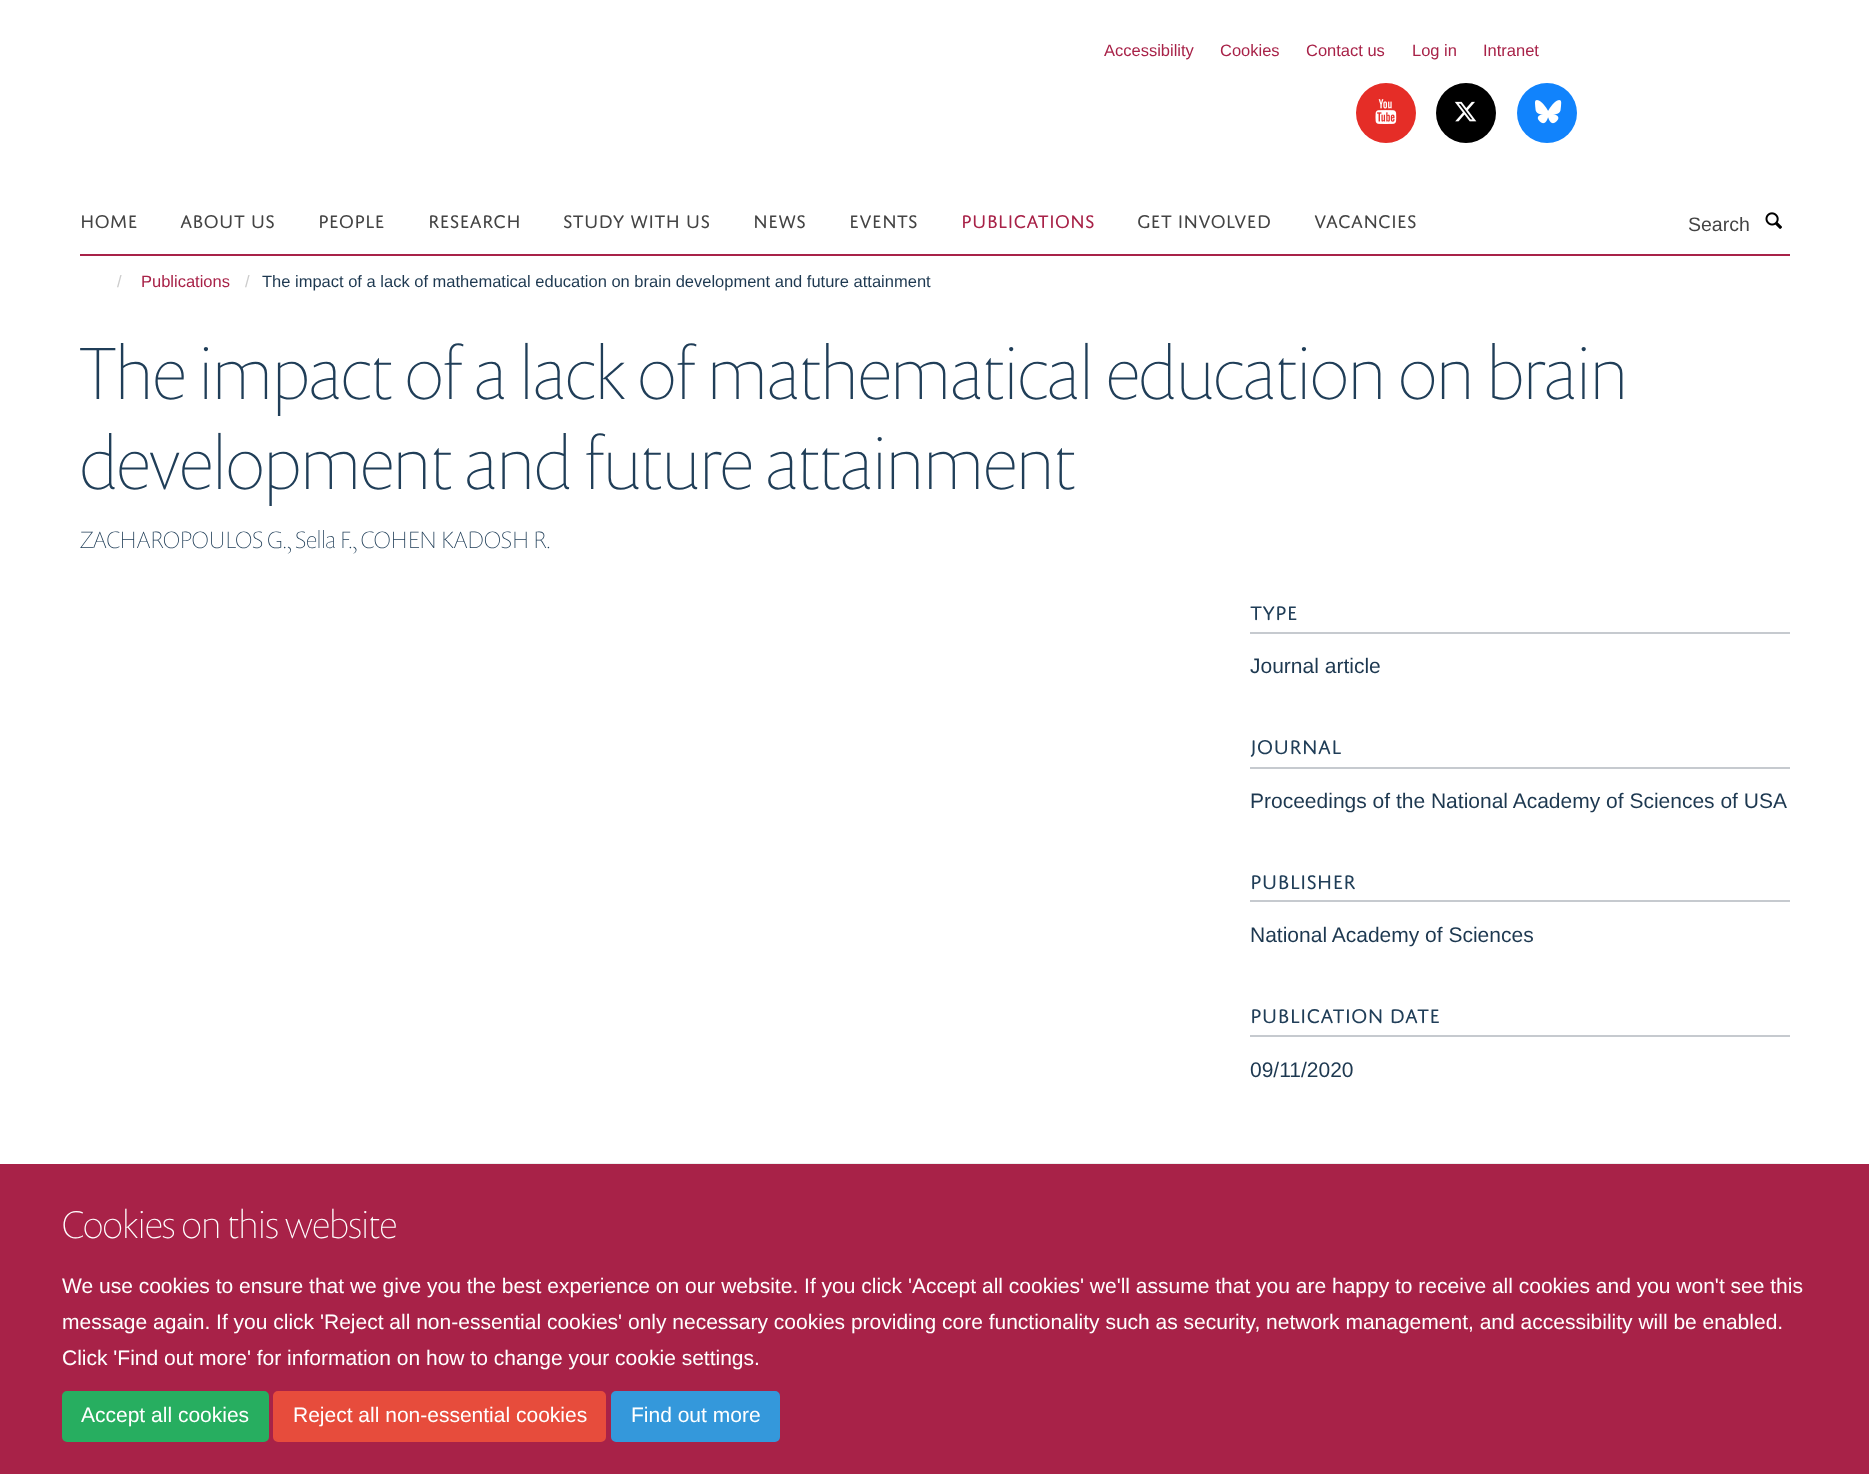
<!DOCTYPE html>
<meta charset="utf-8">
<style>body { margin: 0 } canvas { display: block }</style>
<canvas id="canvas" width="1869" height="1474"></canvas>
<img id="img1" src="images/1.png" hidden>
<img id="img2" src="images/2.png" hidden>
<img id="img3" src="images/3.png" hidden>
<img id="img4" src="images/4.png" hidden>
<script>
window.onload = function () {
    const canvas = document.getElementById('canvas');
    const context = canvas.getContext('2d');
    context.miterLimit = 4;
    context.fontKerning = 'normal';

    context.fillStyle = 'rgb(255, 255, 255)';
    context.fillRect(0, 0, 1869, 1474);
    context.fillStyle = 'rgb(229, 45, 39)';
    context.beginPath();
    context.arc(1386, 113, 30, 0, 2 * Math.PI);
    context.fill();
    context.drawImage(document.getElementById('img1'), 1375, 99, 22, 25);
    context.fillStyle = 'rgb(0, 0, 0)';
    context.beginPath();
    context.arc(1466, 113, 30, 0, 2 * Math.PI);
    context.fill();
    context.drawImage(document.getElementById('img2'), 1454, 101, 23, 21);
    context.fillStyle = 'rgb(17, 131, 252)';
    context.beginPath();
    context.arc(1547, 113, 30, 0, 2 * Math.PI);
    context.fill();
    context.drawImage(document.getElementById('img3'), 1535, 100, 27, 24);
    context.fillStyle = 'rgb(168, 34, 72)';
    context.fillRect(80, 254, 1710, 2);
    context.drawImage(document.getElementById('img4'), 1765, 212, 17, 17);
    context.fillStyle = 'rgb(198, 202, 207)';
    context.fillRect(1250, 632, 540, 2);
    context.fillRect(1250, 767, 540, 2);
    context.fillRect(1250, 900, 540, 2);
    context.fillRect(1250, 1035, 540, 2);
    context.fillStyle = 'rgb(238, 238, 238)';
    context.fillRect(80, 1163, 1710, 1);
    context.fillStyle = 'rgb(168, 34, 72)';
    context.fillRect(0, 1164, 1869, 310);
    context.fillStyle = 'rgb(39, 174, 96)';
    context.beginPath();
    context.roundRect(63, 1392, 205, 49, 4);
    context.fill();
    context.strokeStyle = 'rgb(39, 174, 96)';
    context.lineWidth = 2;
    context.stroke();
    context.fillStyle = 'rgb(231, 76, 60)';
    context.beginPath();
    context.roundRect(274, 1392, 331, 49, 4);
    context.fill();
    context.strokeStyle = 'rgb(231, 76, 60)';
    context.stroke();
    context.fillStyle = 'rgb(52, 152, 219)';
    context.beginPath();
    context.roundRect(612, 1392, 167, 49, 4);
    context.fill();
    context.strokeStyle = 'rgb(52, 152, 219)';
    context.stroke();
    context.font = '16.5px Liberation Sans';
    context.fillStyle = 'rgb(168, 34, 72)';
    context.fillText('Accessibility', 1104, 56);
    context.fillText('Cookies', 1220, 56);
    context.fillText('Contact us', 1306, 56);
    context.fillText('Log in', 1412, 56);
    context.fillText('Intranet', 1483, 56);
    context.font = '19.5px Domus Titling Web';
    context.fillStyle = 'rgb(68, 68, 68)';
    context.fillText('HOME', 80, 228);
    context.fillText('ABOUT US', 180, 228);
    context.fillText('PEOPLE', 318, 228);
    context.fillText('RESEARCH', 428, 228);
    context.fillText('STUDY WITH US', 563, 228);
    context.fillText('NEWS', 753, 228);
    context.fillText('EVENTS', 849, 228);
    context.fillStyle = 'rgb(168, 34, 72)';
    context.fillText('PUBLICATIONS', 961, 228);
    context.fillStyle = 'rgb(68, 68, 68)';
    context.fillText('GET INVOLVED', 1137, 228);
    context.fillText('VACANCIES', 1314, 228);
    context.font = '19.5px Liberation Sans';
    context.fillText('Search', 1688, 231);
    context.font = '16.5px Liberation Sans';
    context.fillStyle = 'rgb(204, 204, 204)';
    context.fillText('/', 117, 287);
    context.fillStyle = 'rgb(168, 34, 72)';
    context.fillText('Publications', 141, 287);
    context.fillStyle = 'rgb(204, 204, 204)';
    context.fillText('/', 245, 287);
    context.fillStyle = 'rgb(29, 56, 80)';
    context.fillText('The impact of a lack of mathematical education on brain development and future attainment', 262, 287);
    context.font = '100 75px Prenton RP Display';
    context.fillStyle = 'rgb(32, 62, 88)';
    context.fillText('The impact of a lack of mathematical education on brain', 80, 399);
    context.fillText('development and future attainment', 80, 489);
    context.font = '100 24px Prenton RP Display';
    context.fillText('ZACHAROPOULOS G., Sella F., COHEN KADOSH R.', 80, 548);
    context.font = '21px Domus Titling Web';
    context.fillText('TYPE', 1250, 620);
    context.font = '21px Liberation Sans';
    context.fillStyle = 'rgb(29, 56, 80)';
    context.fillText('Journal article', 1250, 673);
    context.font = '21px Domus Titling Web';
    context.fillStyle = 'rgb(32, 62, 88)';
    context.fillText('JOURNAL', 1250, 754);
    context.font = '21px Liberation Sans';
    context.fillStyle = 'rgb(29, 56, 80)';
    context.fillText('Proceedings of the National Academy of Sciences of USA', 1250, 808);
    context.font = '21px Domus Titling Web';
    context.fillStyle = 'rgb(32, 62, 88)';
    context.fillText('PUBLISHER', 1250, 889);
    context.font = '21px Liberation Sans';
    context.fillStyle = 'rgb(29, 56, 80)';
    context.fillText('National Academy of Sciences', 1250, 942);
    context.font = '21px Domus Titling Web';
    context.fillStyle = 'rgb(32, 62, 88)';
    context.fillText('PUBLICATION DATE', 1250, 1023);
    context.font = '21px Liberation Sans';
    context.fillStyle = 'rgb(29, 56, 80)';
    context.fillText('09/11/2020', 1250, 1077);
    context.font = '100 39px Prenton RP Display';
    context.fillStyle = 'rgb(255, 255, 255)';
    context.fillText('Cookies on this website', 62, 1238);
    context.font = '21px Liberation Sans';
    context.fillText('We use cookies to ensure that we give you the best experience on our website. If you click \'Accept all cookies\' we\'ll assume that you are happy to receive all cookies and you won\'t see this', 62, 1293);
    context.fillText('message again. If you click \'Reject all non-essential cookies\' only necessary cookies providing core functionality such as security, network management, and accessibility will be enabled.', 62, 1329);
    context.fillText('Click \'Find out more\' for information on how to change your cookie settings.', 62, 1365);
    context.fillText('Accept all cookies', 81, 1422);
    context.fillText('Reject all non-essential cookies', 293, 1422);
    context.fillText('Find out more', 631, 1422);
};
</script>
